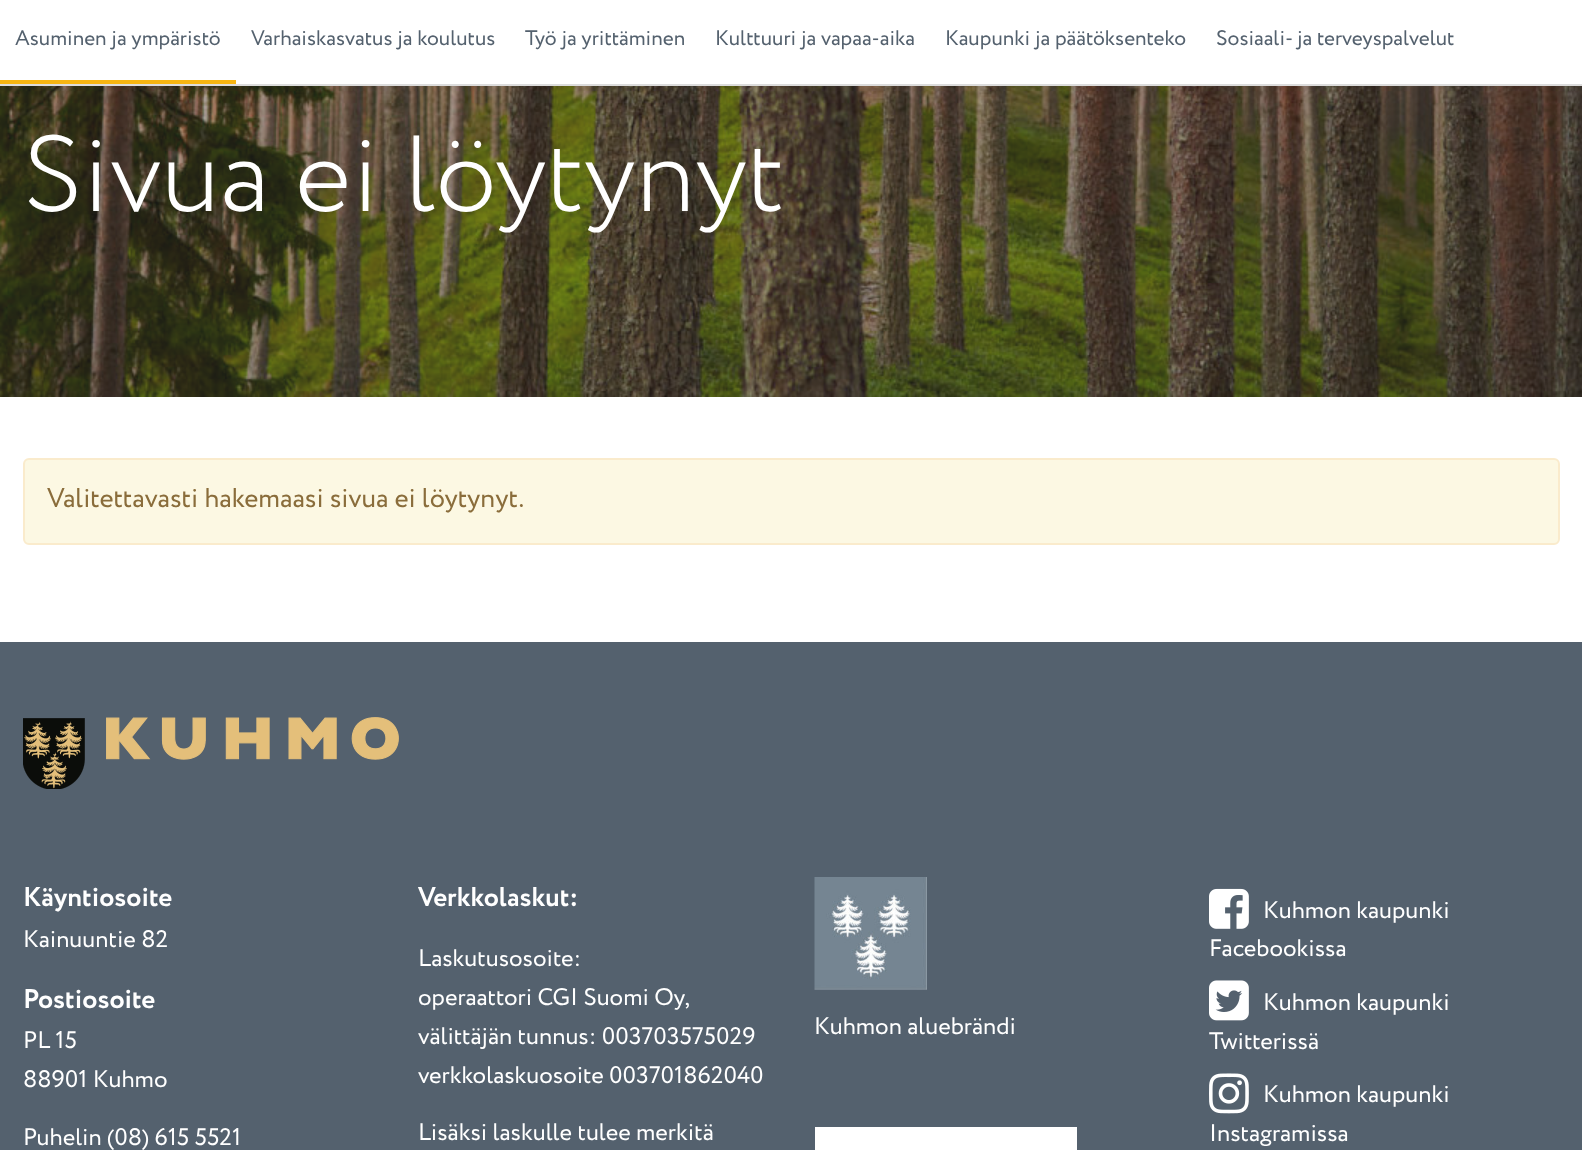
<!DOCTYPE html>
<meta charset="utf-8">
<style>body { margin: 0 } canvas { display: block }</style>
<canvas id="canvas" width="1582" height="1150"></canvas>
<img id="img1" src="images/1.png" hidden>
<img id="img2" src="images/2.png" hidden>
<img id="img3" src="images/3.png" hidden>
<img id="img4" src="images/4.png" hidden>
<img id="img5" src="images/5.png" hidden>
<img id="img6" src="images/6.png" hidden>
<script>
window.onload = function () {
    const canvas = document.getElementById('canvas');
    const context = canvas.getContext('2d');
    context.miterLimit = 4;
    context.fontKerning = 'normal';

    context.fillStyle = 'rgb(255, 255, 255)';
    context.fillRect(0, 0, 1582, 1150);
    context.fillStyle = 'rgb(220, 220, 220)';
    context.fillRect(0, 84, 1582, 2);
    context.fillStyle = 'rgb(247, 181, 18)';
    context.fillRect(0, 80, 236, 4);
    context.drawImage(document.getElementById('img1'), 0, 86, 1582, 311);
    context.fillStyle = 'rgb(252, 248, 227)';
    context.beginPath();
    context.roundRect(24, 459, 1535, 85, 5);
    context.fill();
    context.strokeStyle = 'rgb(250, 235, 204)';
    context.lineWidth = 2;
    context.stroke();
    context.fillStyle = 'rgb(84, 97, 110)';
    context.fillRect(0, 642, 1582, 508);
    context.drawImage(document.getElementById('img2'), 23, 717, 376, 72);
    context.drawImage(document.getElementById('img3'), 814, 877, 113, 113);
    context.fillStyle = 'rgb(255, 255, 255)';
    context.fillRect(815, 1127, 262, 23);
    context.drawImage(document.getElementById('img4'), 1209, 888, 40, 41);
    context.drawImage(document.getElementById('img5'), 1209, 980, 40, 41);
    context.drawImage(document.getElementById('img6'), 1209, 1073, 40, 41);
    context.font = '21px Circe';
    context.fillStyle = 'rgb(84, 97, 110)';
    context.fillText('Asuminen ja ympäristö', 15, 45);
    context.fillText('Varhaiskasvatus ja koulutus', 251, 45);
    context.fillText('Työ ja yrittäminen', 525, 45);
    context.fillText('Kulttuuri ja vapaa-aika', 715, 45);
    context.fillText('Kaupunki ja päätöksenteko', 945, 45);
    context.fillText('Sosiaali- ja terveyspalvelut', 1216, 45);
    context.font = '300 108px Circe';
    context.fillStyle = 'rgb(255, 255, 255)';
    context.fillText('Sivua ei löytynyt', 23, 211);
    context.font = '27px Circe';
    context.fillStyle = 'rgb(138, 109, 59)';
    context.fillText('Valitettavasti hakemaasi sivua ei löytynyt.', 47, 507);
    context.font = 'bold 27px Circe';
    context.fillStyle = 'rgb(255, 255, 255)';
    context.fillText('Käyntiosoite', 23, 906);
    context.font = '24px Circe';
    context.fillText('Kainuuntie 82', 23, 947);
    context.font = 'bold 27px Circe';
    context.fillText('Postiosoite', 23, 1008);
    context.font = '24px Circe';
    context.fillText('PL 15', 23, 1048);
    context.fillText('88901 Kuhmo', 23, 1087);
    context.fillText('Puhelin (08) 615 5521', 23, 1145);
    context.font = 'bold 27px Circe';
    context.fillText('Verkkolaskut:', 418, 906);
    context.font = '24px Circe';
    context.fillText('Laskutusosoite:', 418, 966);
    context.fillText('operaattori CGI Suomi Oy,', 418, 1005);
    context.fillText('välittäjän tunnus: 003703575029', 418, 1044);
    context.fillText('verkkolaskuosoite 003701862040', 418, 1083);
    context.fillText('Lisäksi laskulle tulee merkitä', 418, 1140);
    context.fillText('Kuhmon aluebrändi', 814, 1034);
    context.fillText('Kuhmon kaupunki', 1263, 918);
    context.fillText('Facebookissa', 1209, 956);
    context.fillText('Kuhmon kaupunki', 1263, 1010);
    context.fillText('Twitterissä', 1209, 1049);
    context.fillText('Kuhmon kaupunki', 1263, 1102);
    context.fillText('Instagramissa', 1209, 1141);
};
</script>
